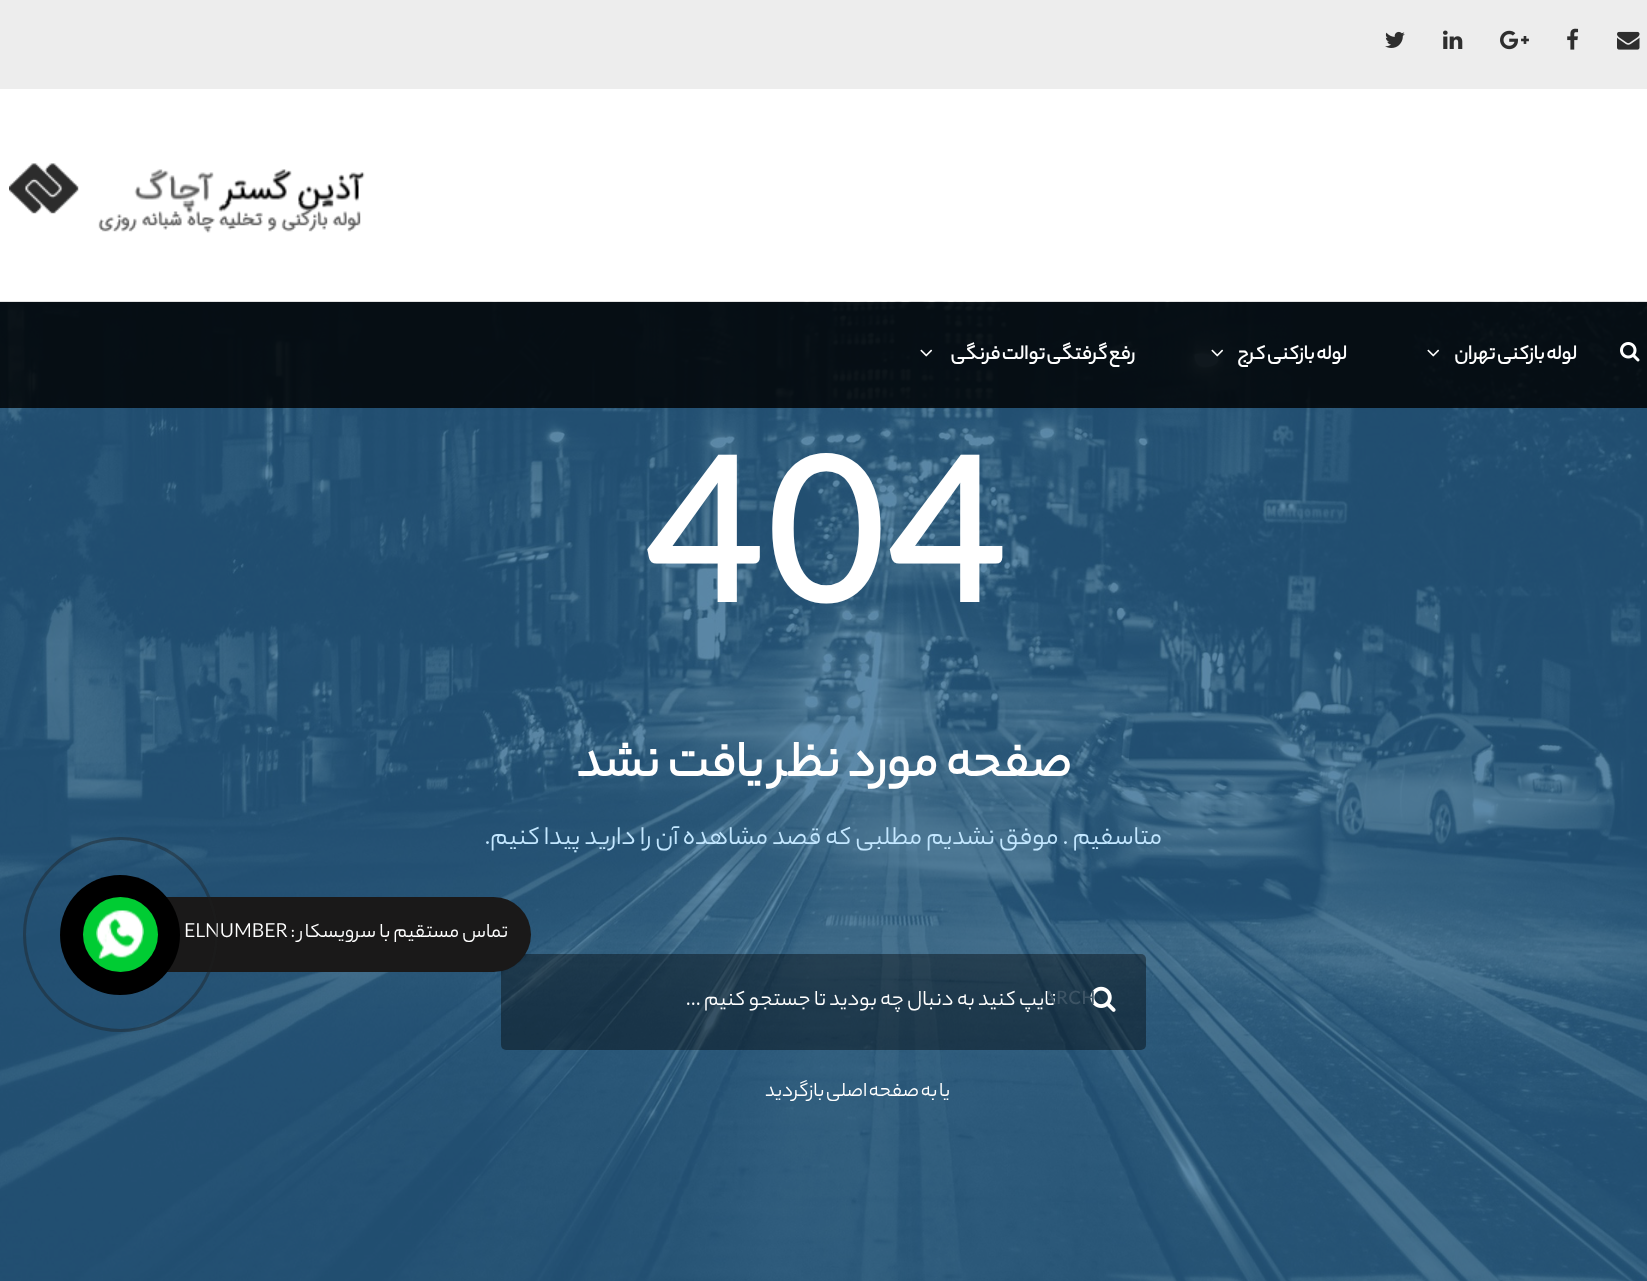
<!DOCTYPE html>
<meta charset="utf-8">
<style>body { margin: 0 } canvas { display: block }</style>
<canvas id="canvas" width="1647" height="1281"></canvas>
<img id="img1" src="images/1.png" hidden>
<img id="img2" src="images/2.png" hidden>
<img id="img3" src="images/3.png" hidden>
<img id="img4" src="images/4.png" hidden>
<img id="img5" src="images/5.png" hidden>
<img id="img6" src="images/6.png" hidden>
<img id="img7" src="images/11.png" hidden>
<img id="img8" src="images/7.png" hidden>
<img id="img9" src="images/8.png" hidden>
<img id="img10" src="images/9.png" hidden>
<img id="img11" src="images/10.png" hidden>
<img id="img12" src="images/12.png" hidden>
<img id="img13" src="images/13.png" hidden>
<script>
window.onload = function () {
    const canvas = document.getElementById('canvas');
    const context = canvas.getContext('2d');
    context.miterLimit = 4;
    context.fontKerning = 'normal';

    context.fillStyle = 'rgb(255, 255, 255)';
    context.fillRect(0, 0, 1647, 1281);
    context.fillStyle = 'rgb(237, 237, 237)';
    context.fillRect(0, 0, 1647, 89);
    context.drawImage(document.getElementById('img1'), 1617, 31, 23, 19);
    context.drawImage(document.getElementById('img2'), 1567, 28, 12, 22);
    context.drawImage(document.getElementById('img3'), 1500, 30, 29, 20);
    context.drawImage(document.getElementById('img4'), 1443, 30, 20, 19);
    context.drawImage(document.getElementById('img5'), 1385, 31, 20, 17);
    context.drawImage(document.getElementById('img6'), 9, 163, 356, 70);
    context.fillStyle = 'rgb(35, 97, 142)';
    context.fillRect(0, 302, 1647, 979);
    context.drawImage(document.getElementById('img7'), 0, 301, 1647, 980);
    context.fillStyle = 'rgba(0, 0, 0, 0.82)';
    context.fillRect(0, 302, 1647, 106);
    context.drawImage(document.getElementById('img8'), 1620, 342, 20, 20);
    context.drawImage(document.getElementById('img9'), 1427, 349, 13, 8);
    context.drawImage(document.getElementById('img10'), 1211, 349, 13, 8);
    context.drawImage(document.getElementById('img11'), 920, 349, 13, 8);
    context.fillStyle = 'rgba(0, 0, 0, 0.4)';
    context.beginPath();
    context.roundRect(501, 954, 645, 96, 5);
    context.fill();
    context.drawImage(document.getElementById('img12'), 1090, 986, 26, 26);
    context.fillStyle = 'rgb(26, 25, 25)';
    context.beginPath();
    context.roundRect(83, 897, 448, 75, 37.5);
    context.fill();
    context.letterSpacing = '0.75px';
    context.wordSpacing = '-1.5px';
    context.direction = 'rtl';
    context.font = 'bold 21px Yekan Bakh';
    context.fillStyle = 'rgb(255, 255, 255)';
    context.fillText('لوله بازکنی تهران', 1577, 359);
    context.fillText('لوله بازکنی کرج', 1347, 359);
    context.fillText('رفع گرفتگی توالت فرنگی', 1135, 359);
    context.letterSpacing = '0px';
    context.wordSpacing = '0px';
    context.direction = 'ltr';
    context.font = 'bold 225px Yekan Bakh';
    context.fillText('404', 643, 602);
    context.direction = 'rtl';
    context.font = 'bold 52.5px Yekan Bakh';
    context.fillText('صفحه مورد نظر یافت نشد', 1071, 776);
    context.font = '27px Yekan Bakh';
    context.fillStyle = 'rgb(195, 231, 255)';
    context.fillText('متاسفیم . موفق نشدیم مطلبی که قصد مشاهده آن را دارید پیدا کنیم.', 1162, 844);
    context.font = '22.5px Yekan Bakh';
    context.fillStyle = 'rgb(255, 255, 255)';
    context.fillText('تایپ کنید به دنبال چه بودید تا جستجو کنیم ...', 1056, 1005);
    context.save();
    context.beginPath();
    context.rect(1047, 954, 99, 96);
    context.clip();
    context.letterSpacing = '1px';
    context.direction = 'ltr';
    context.font = 'bold 19.5px Yekan Bakh';
    context.fillStyle = 'rgb(61, 84, 101)';
    context.fillText('ARCH', 1043, 1004);
    context.restore();
    context.letterSpacing = '1.5px';
    context.wordSpacing = '-1.5px';
    context.font = '21px Yekan Bakh';
    context.fillText('یا به صفحه اصلی بازگردید', 950, 1096);
    context.letterSpacing = '0px';
    context.wordSpacing = '0px';
    context.fillText('تماس مستقیم با سرویسکار :', 508, 937);
    context.direction = 'ltr';
    context.fillText('ELNUMBER', 184, 937);
    context.beginPath();
    context.arc(120.5, 934.5, 96, 0, 2 * Math.PI);
    context.strokeStyle = 'rgba(30, 30, 30, 0.4)';
    context.lineWidth = 3;
    context.stroke();
    context.fillStyle = 'rgb(0, 0, 0)';
    context.beginPath();
    context.arc(120, 935, 60, 0, 2 * Math.PI);
    context.fill();
    context.fillStyle = 'rgb(0, 204, 51)';
    context.beginPath();
    context.arc(120.5, 934.5, 37.5, 0, 2 * Math.PI);
    context.fill();
    context.drawImage(document.getElementById('img13'), 96, 910, 48, 49);
};
</script>
